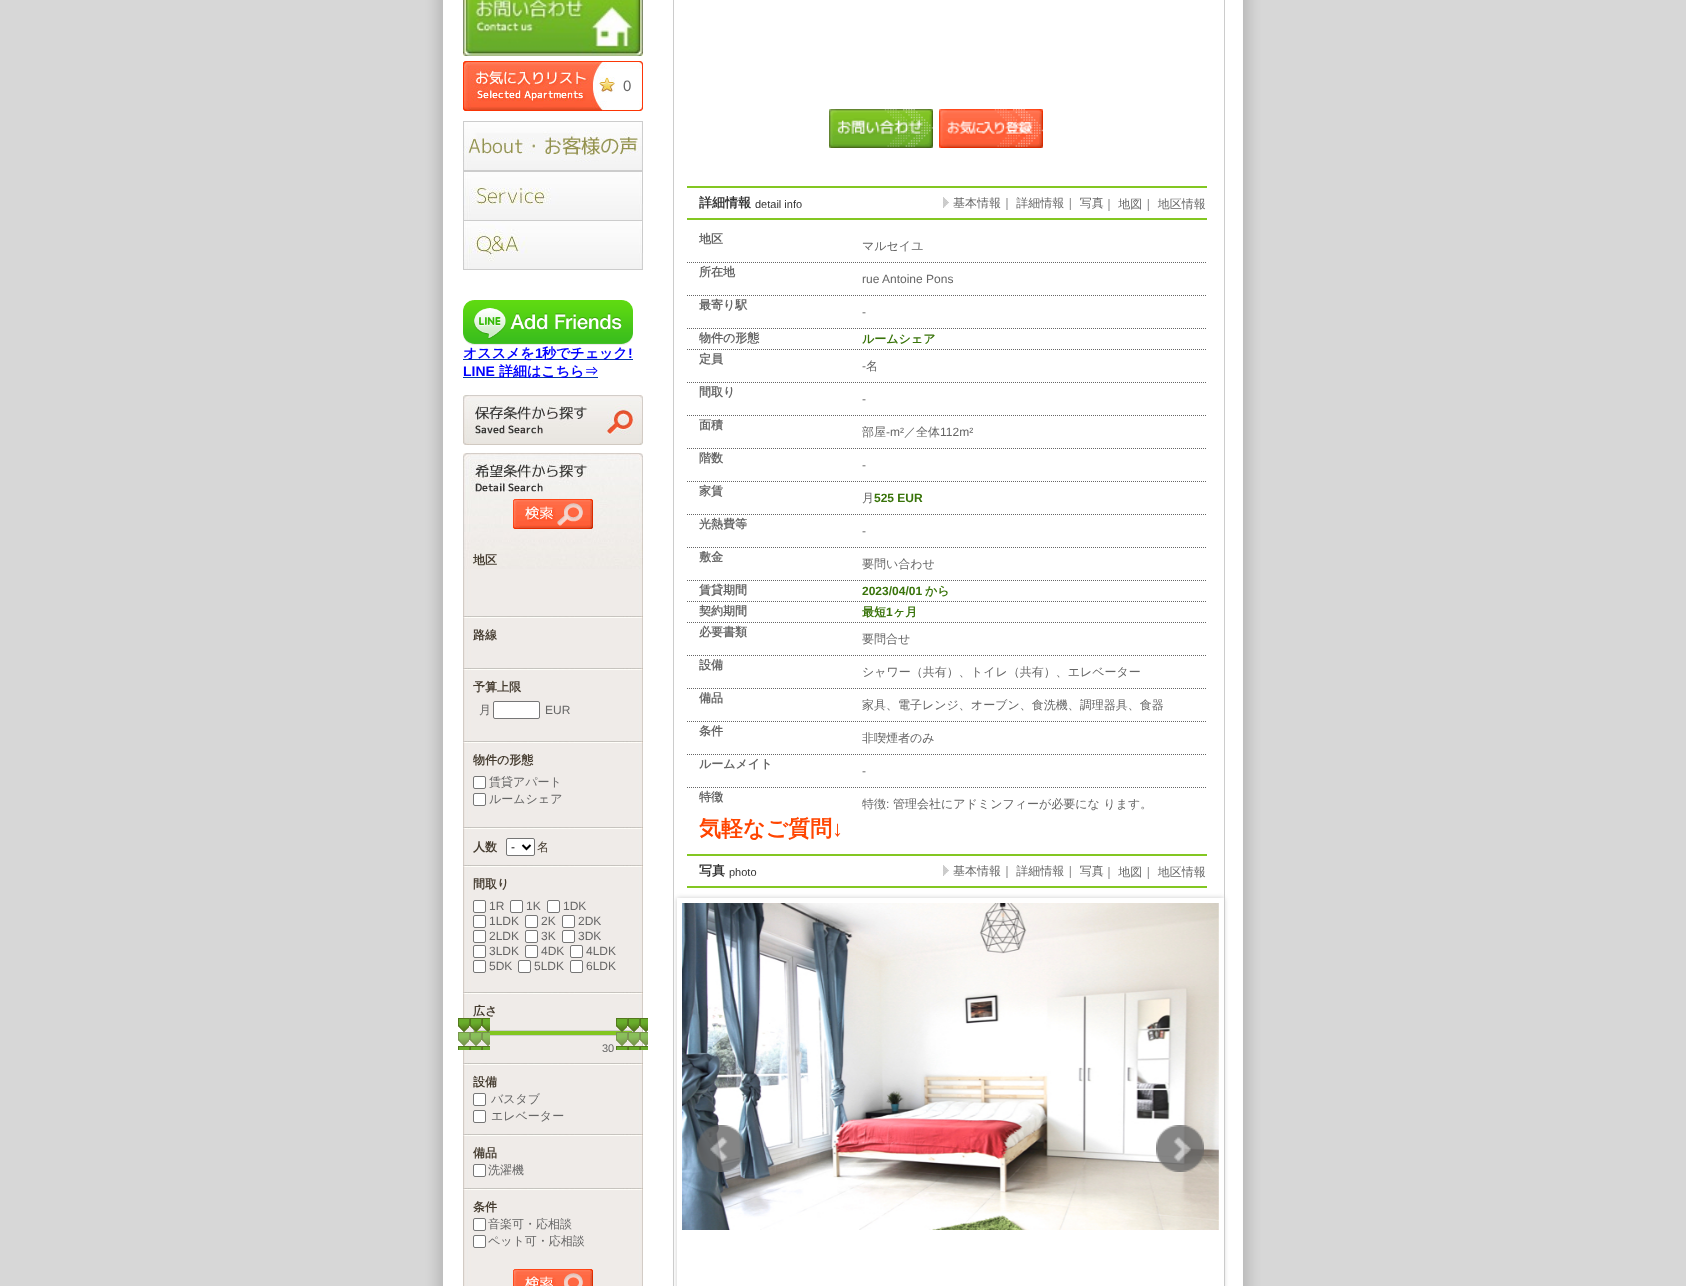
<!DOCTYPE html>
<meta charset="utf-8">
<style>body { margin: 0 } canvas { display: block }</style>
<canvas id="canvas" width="1686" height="1286"></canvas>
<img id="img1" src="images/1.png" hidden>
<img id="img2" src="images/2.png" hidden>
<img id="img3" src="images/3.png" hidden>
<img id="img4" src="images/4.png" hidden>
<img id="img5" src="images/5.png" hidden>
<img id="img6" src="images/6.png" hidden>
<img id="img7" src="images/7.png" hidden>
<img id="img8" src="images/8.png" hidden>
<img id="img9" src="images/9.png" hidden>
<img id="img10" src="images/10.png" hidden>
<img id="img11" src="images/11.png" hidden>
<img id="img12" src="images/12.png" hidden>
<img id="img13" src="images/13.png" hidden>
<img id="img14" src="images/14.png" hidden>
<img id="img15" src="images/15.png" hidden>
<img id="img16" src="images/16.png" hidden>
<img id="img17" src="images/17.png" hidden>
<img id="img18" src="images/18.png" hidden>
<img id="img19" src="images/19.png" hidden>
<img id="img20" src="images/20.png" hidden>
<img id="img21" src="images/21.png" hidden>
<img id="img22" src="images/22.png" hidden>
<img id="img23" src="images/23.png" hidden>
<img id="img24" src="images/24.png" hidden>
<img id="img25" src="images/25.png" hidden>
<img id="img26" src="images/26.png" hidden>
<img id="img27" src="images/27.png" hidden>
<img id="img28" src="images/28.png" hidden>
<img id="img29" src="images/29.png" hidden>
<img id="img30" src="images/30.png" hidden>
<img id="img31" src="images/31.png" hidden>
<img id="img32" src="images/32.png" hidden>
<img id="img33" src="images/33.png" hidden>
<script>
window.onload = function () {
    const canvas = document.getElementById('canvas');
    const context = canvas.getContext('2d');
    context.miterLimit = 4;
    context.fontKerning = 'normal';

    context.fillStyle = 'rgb(215, 215, 215)';
    context.fillRect(0, 0, 1686, 1286);
    context.drawImage(document.getElementById('img1'), 424, 0, 838, 1286);
    context.drawImage(document.getElementById('img2'), 463, 0, 180, 56);
    context.drawImage(document.getElementById('img3'), 463, 61, 180, 50);
    context.fillStyle = 'rgb(204, 204, 204)';
    context.fillRect(463, 121, 180, 1);
    context.drawImage(document.getElementById('img4'), 463, 122, 180, 49);
    context.fillRect(463, 171, 180, 1);
    context.drawImage(document.getElementById('img5'), 463, 172, 180, 49);
    context.drawImage(document.getElementById('img6'), 463, 221, 180, 49);
    context.drawImage(document.getElementById('img7'), 463, 300, 170, 45);
    context.fillStyle = 'rgb(4, 58, 167)';
    context.fillRect(463, 359, 170, 1);
    context.fillRect(463, 377, 135, 1);
    context.drawImage(document.getElementById('img8'), 463, 395, 180, 50);
    context.drawImage(document.getElementById('img9'), 463, 453, 180, 39);
    context.drawImage(document.getElementById('img10'), 463, 492, 180, 50);
    context.drawImage(document.getElementById('img11'), 513, 499, 80, 30);
    context.drawImage(document.getElementById('img12'), 463, 542, 180, 27);
    context.drawImage(document.getElementById('img13'), 463, 569, 180, 47);
    context.drawImage(document.getElementById('img14'), 463, 616, 180, 2);
    context.drawImage(document.getElementById('img15'), 463, 618, 180, 50);
    context.drawImage(document.getElementById('img14'), 463, 668, 180, 2);
    context.drawImage(document.getElementById('img16'), 463, 670, 180, 71);
    context.fillStyle = 'rgb(255, 255, 255)';
    context.beginPath();
    context.roundRect(493.5, 701.5, 46, 17, 1.5);
    context.fill();
    context.strokeStyle = 'rgb(118, 118, 118)';
    context.stroke();
    context.drawImage(document.getElementById('img14'), 463, 741, 180, 2);
    context.drawImage(document.getElementById('img17'), 463, 743, 180, 84);
    context.beginPath();
    context.roundRect(473.5, 776.5, 12, 12, 1.5);
    context.fill();
    context.stroke();
    context.beginPath();
    context.roundRect(473.5, 793.5, 12, 12, 1.5);
    context.fill();
    context.stroke();
    context.drawImage(document.getElementById('img14'), 463, 827, 180, 2);
    context.drawImage(document.getElementById('img18'), 463, 829, 180, 36);
    context.beginPath();
    context.roundRect(506.5, 838.5, 28, 17, 1.5);
    context.fill();
    context.stroke();
    context.beginPath();
    context.moveTo(522.5, 845);
    context.lineTo(526.5, 849);
    context.lineTo(530.5, 845);
    context.strokeStyle = 'rgb(0, 0, 0)';
    context.lineWidth = 2;
    context.stroke();
    context.drawImage(document.getElementById('img14'), 463, 865, 180, 2);
    context.drawImage(document.getElementById('img19'), 463, 867, 180, 125);
    context.beginPath();
    context.roundRect(473.5, 900.5, 12, 12, 1.5);
    context.fill();
    context.strokeStyle = 'rgb(118, 118, 118)';
    context.lineWidth = 1;
    context.stroke();
    context.beginPath();
    context.roundRect(510.5, 900.5, 12, 12, 1.5);
    context.fill();
    context.stroke();
    context.beginPath();
    context.roundRect(547.5, 900.5, 12, 12, 1.5);
    context.fill();
    context.stroke();
    context.beginPath();
    context.roundRect(473.5, 915.5, 12, 12, 1.5);
    context.fill();
    context.stroke();
    context.beginPath();
    context.roundRect(525.5, 915.5, 12, 12, 1.5);
    context.fill();
    context.stroke();
    context.beginPath();
    context.roundRect(562.5, 915.5, 12, 12, 1.5);
    context.fill();
    context.stroke();
    context.beginPath();
    context.roundRect(473.5, 930.5, 12, 12, 1.5);
    context.fill();
    context.stroke();
    context.beginPath();
    context.roundRect(525.5, 930.5, 12, 12, 1.5);
    context.fill();
    context.stroke();
    context.beginPath();
    context.roundRect(562.5, 930.5, 12, 12, 1.5);
    context.fill();
    context.stroke();
    context.beginPath();
    context.roundRect(473.5, 945.5, 12, 12, 1.5);
    context.fill();
    context.stroke();
    context.beginPath();
    context.roundRect(525.5, 945.5, 12, 12, 1.5);
    context.fill();
    context.stroke();
    context.beginPath();
    context.roundRect(570.5, 945.5, 12, 12, 1.5);
    context.fill();
    context.stroke();
    context.beginPath();
    context.roundRect(473.5, 960.5, 12, 12, 1.5);
    context.fill();
    context.stroke();
    context.beginPath();
    context.roundRect(518.5, 960.5, 12, 12, 1.5);
    context.fill();
    context.stroke();
    context.beginPath();
    context.roundRect(570.5, 960.5, 12, 12, 1.5);
    context.fill();
    context.stroke();
    context.drawImage(document.getElementById('img14'), 463, 992, 180, 2);
    context.drawImage(document.getElementById('img20'), 463, 994, 180, 69);
    context.fillStyle = 'rgb(204, 204, 204)';
    context.fillRect(473, 1030, 160, 6);
    context.fillStyle = 'rgb(131, 198, 33)';
    context.fillRect(474, 1031, 158, 4);
    context.drawImage(document.getElementById('img21'), 458, 1018, 32, 32);
    context.drawImage(document.getElementById('img22'), 616, 1018, 32, 32);
    context.drawImage(document.getElementById('img23'), 458, 1025, 32, 21);
    context.drawImage(document.getElementById('img24'), 616, 1025, 32, 21);
    context.drawImage(document.getElementById('img14'), 463, 1063, 180, 2);
    context.drawImage(document.getElementById('img20'), 463, 1065, 180, 69);
    context.fillStyle = 'rgb(255, 255, 255)';
    context.beginPath();
    context.roundRect(473.5, 1093.5, 12, 12, 1.5);
    context.fill();
    context.stroke();
    context.beginPath();
    context.roundRect(473.5, 1110.5, 12, 12, 1.5);
    context.fill();
    context.stroke();
    context.drawImage(document.getElementById('img14'), 463, 1134, 180, 2);
    context.drawImage(document.getElementById('img25'), 463, 1136, 180, 52);
    context.beginPath();
    context.roundRect(473.5, 1164.5, 12, 12, 1.5);
    context.fill();
    context.stroke();
    context.drawImage(document.getElementById('img14'), 463, 1188, 180, 2);
    context.drawImage(document.getElementById('img20'), 463, 1190, 180, 69);
    context.beginPath();
    context.roundRect(473.5, 1218.5, 12, 12, 1.5);
    context.fill();
    context.stroke();
    context.beginPath();
    context.roundRect(473.5, 1235.5, 12, 12, 1.5);
    context.fill();
    context.stroke();
    context.drawImage(document.getElementById('img26'), 463, 1259, 180, 27);
    context.drawImage(document.getElementById('img27'), 513, 1269, 80, 17);
    context.strokeStyle = 'rgb(204, 204, 204)';
    context.strokeRect(673.5, -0.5, 551, 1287);
    context.drawImage(document.getElementById('img28'), 829, 109, 104, 39);
    context.drawImage(document.getElementById('img29'), 939, 109, 104, 39);
    context.fillStyle = 'rgb(131, 199, 34)';
    context.fillRect(687, 186, 520, 2);
    context.fillRect(687, 218, 520, 2);
    context.drawImage(document.getElementById('img30'), 943, 197, 6, 11);
    context.beginPath();
    context.moveTo(687, 262.5);
    context.lineTo(1207, 262.5);
    context.strokeStyle = 'rgb(102, 102, 102)';
    context.setLineDash([1, 1]);
    context.stroke();
    context.beginPath();
    context.moveTo(687, 295.5);
    context.lineTo(1207, 295.5);
    context.stroke();
    context.beginPath();
    context.moveTo(687, 328.5);
    context.lineTo(1207, 328.5);
    context.stroke();
    context.beginPath();
    context.moveTo(687, 349.5);
    context.lineTo(1207, 349.5);
    context.stroke();
    context.beginPath();
    context.moveTo(687, 382.5);
    context.lineTo(1207, 382.5);
    context.stroke();
    context.beginPath();
    context.moveTo(687, 415.5);
    context.lineTo(1207, 415.5);
    context.stroke();
    context.beginPath();
    context.moveTo(687, 448.5);
    context.lineTo(1207, 448.5);
    context.stroke();
    context.beginPath();
    context.moveTo(687, 481.5);
    context.lineTo(1207, 481.5);
    context.stroke();
    context.beginPath();
    context.moveTo(687, 514.5);
    context.lineTo(1207, 514.5);
    context.stroke();
    context.beginPath();
    context.moveTo(687, 547.5);
    context.lineTo(1207, 547.5);
    context.stroke();
    context.beginPath();
    context.moveTo(687, 580.5);
    context.lineTo(1207, 580.5);
    context.stroke();
    context.beginPath();
    context.moveTo(687, 601.5);
    context.lineTo(1207, 601.5);
    context.stroke();
    context.beginPath();
    context.moveTo(687, 622.5);
    context.lineTo(1207, 622.5);
    context.stroke();
    context.beginPath();
    context.moveTo(687, 655.5);
    context.lineTo(1207, 655.5);
    context.stroke();
    context.beginPath();
    context.moveTo(687, 688.5);
    context.lineTo(1207, 688.5);
    context.stroke();
    context.beginPath();
    context.moveTo(687, 721.5);
    context.lineTo(1207, 721.5);
    context.stroke();
    context.beginPath();
    context.moveTo(687, 754.5);
    context.lineTo(1207, 754.5);
    context.stroke();
    context.beginPath();
    context.moveTo(687, 787.5);
    context.lineTo(1207, 787.5);
    context.stroke();
    context.fillRect(687, 854, 520, 2);
    context.fillRect(687, 886, 520, 2);
    context.drawImage(document.getElementById('img30'), 943, 865, 6, 11);
    context.save();
    context.beginPath();
    context.moveTo(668, 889);
    context.lineTo(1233, 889);
    context.lineTo(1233, 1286);
    context.lineTo(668, 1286);
    context.closePath();
    context.moveTo(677, 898);
    context.lineTo(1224, 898);
    context.lineTo(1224, 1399);
    context.lineTo(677, 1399);
    context.closePath();
    context.clip('evenodd');
    context.fillStyle = 'rgb(204, 204, 204)';
    context.filter = 'blur(2.5px)';
    context.beginPath();
    context.rect(677, 898, 547, 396);
    context.fill();
    context.filter = 'none';
    context.restore();
    context.drawImage(document.getElementById('img31'), 682, 903, 537, 327);
    context.drawImage(document.getElementById('img32'), 697, 1125, 48, 47);
    context.drawImage(document.getElementById('img33'), 1156, 1125, 48, 47);
    context.font = '15px Liberation Sans';
    context.fillStyle = 'rgb(102, 102, 102)';
    context.fillText('0', 623, 91);
    context.font = 'bold 14px WenQuanYi Zen Hei';
    context.fillStyle = 'rgb(0, 0, 255)';
    context.fillText('オススメを', 463, 358);
    context.font = 'bold 14px Liberation Sans';
    context.fillText('1', 535, 358);
    context.font = 'bold 14px WenQuanYi Zen Hei';
    context.fillText('秒でチェック', 542, 358);
    context.font = 'bold 14px Liberation Sans';
    context.fillText('!', 628, 358);
    context.fillText('LINE', 463, 376);
    context.font = 'bold 14px WenQuanYi Zen Hei';
    context.fillText('詳細はこちら⇒', 499, 376);
    context.font = 'bold 12px WenQuanYi Zen Hei';
    context.fillStyle = 'rgb(70, 61, 49)';
    context.fillText('地区', 473, 564);
    context.fillText('路線', 473, 639);
    context.fillText('予算上限', 473, 691);
    context.font = '500 12px WenQuanYi Zen Hei';
    context.fillStyle = 'rgb(102, 102, 102)';
    context.fillText('月', 479, 714);
    context.font = '12px Liberation Sans';
    context.fillText('EUR', 545, 714);
    context.font = 'bold 12px WenQuanYi Zen Hei';
    context.fillStyle = 'rgb(70, 61, 49)';
    context.fillText('物件の形態', 473, 764);
    context.font = '500 12px WenQuanYi Zen Hei';
    context.fillStyle = 'rgb(102, 102, 102)';
    context.fillText('賃貸アパート', 489, 786);
    context.fillText('ルームシェア', 489, 803);
    context.font = 'bold 12px WenQuanYi Zen Hei';
    context.fillStyle = 'rgb(70, 61, 49)';
    context.fillText('人数', 473, 851);
    context.font = '12px Liberation Sans';
    context.fillStyle = 'rgb(0, 0, 0)';
    context.fillText('-', 511, 851);
    context.font = '500 12px WenQuanYi Zen Hei';
    context.fillStyle = 'rgb(70, 61, 49)';
    context.fillText('名', 537, 851);
    context.font = 'bold 12px WenQuanYi Zen Hei';
    context.fillText('間取り', 473, 888);
    context.font = '12px Liberation Sans';
    context.fillStyle = 'rgb(102, 102, 102)';
    context.fillText('1R', 489, 910);
    context.fillText('1K', 526, 910);
    context.fillText('1DK', 563, 910);
    context.fillText('1LDK', 489, 925);
    context.fillText('2K', 541, 925);
    context.fillText('2DK', 578, 925);
    context.fillText('2LDK', 489, 940);
    context.fillText('3K', 541, 940);
    context.fillText('3DK', 578, 940);
    context.fillText('3LDK', 489, 955);
    context.fillText('4DK', 541, 955);
    context.fillText('4LDK', 586, 955);
    context.fillText('5DK', 489, 970);
    context.fillText('5LDK', 534, 970);
    context.fillText('6LDK', 586, 970);
    context.font = 'bold 12px WenQuanYi Zen Hei';
    context.fillStyle = 'rgb(70, 61, 49)';
    context.fillText('広さ', 473, 1015);
    context.font = '11px Liberation Sans';
    context.fillStyle = 'rgb(102, 102, 102)';
    context.fillText('30', 602, 1052);
    context.font = 'bold 12px WenQuanYi Zen Hei';
    context.fillStyle = 'rgb(70, 61, 49)';
    context.fillText('設備', 473, 1086);
    context.font = '500 12px WenQuanYi Zen Hei';
    context.fillStyle = 'rgb(102, 102, 102)';
    context.fillText('バスタブ', 491, 1103);
    context.fillText('エレベーター', 491, 1120);
    context.font = 'bold 12px WenQuanYi Zen Hei';
    context.fillStyle = 'rgb(70, 61, 49)';
    context.fillText('備品', 473, 1157);
    context.font = '500 12px WenQuanYi Zen Hei';
    context.fillStyle = 'rgb(102, 102, 102)';
    context.fillText('洗濯機', 488, 1174);
    context.font = 'bold 12px WenQuanYi Zen Hei';
    context.fillStyle = 'rgb(70, 61, 49)';
    context.fillText('条件', 473, 1211);
    context.font = '500 12px WenQuanYi Zen Hei';
    context.fillStyle = 'rgb(102, 102, 102)';
    context.fillText('音楽可・応相談', 488, 1228);
    context.fillText('ペット可・応相談', 488, 1245);
    context.font = 'bold 13px WenQuanYi Zen Hei';
    context.fillStyle = 'rgb(51, 51, 51)';
    context.fillText('詳細情報', 699, 207);
    context.font = '11px Liberation Sans';
    context.fillText('detail info', 755, 208);
    context.font = '500 12px WenQuanYi Zen Hei';
    context.fillStyle = 'rgb(102, 102, 102)';
    context.fillText('基本情報｜ 詳細情報｜ 写真', 953, 207);
    context.fillText('｜ 地図｜ 地区情報', 1103, 208);
    context.font = 'bold 12px WenQuanYi Zen Hei';
    context.fillText('地区', 699, 243);
    context.font = '500 12px WenQuanYi Zen Hei';
    context.fillText('マルセイユ', 862, 250);
    context.font = 'bold 12px WenQuanYi Zen Hei';
    context.fillText('所在地', 699, 276);
    context.font = '12px Liberation Sans';
    context.fillText('rue Antoine Pons', 862, 283);
    context.font = 'bold 12px WenQuanYi Zen Hei';
    context.fillText('最寄り駅', 699, 309);
    context.font = '12px Liberation Sans';
    context.fillText('-', 862, 316);
    context.font = 'bold 12px WenQuanYi Zen Hei';
    context.fillText('物件の形態', 699, 342);
    context.fillStyle = 'rgb(56, 115, 9)';
    context.fillText('ルームシェア', 862, 343);
    context.fillStyle = 'rgb(102, 102, 102)';
    context.fillText('定員', 699, 363);
    context.font = '12px Liberation Sans';
    context.fillText('-', 862, 370);
    context.font = '500 12px WenQuanYi Zen Hei';
    context.fillText('名', 866, 370);
    context.font = 'bold 12px WenQuanYi Zen Hei';
    context.fillText('間取り', 699, 396);
    context.font = '12px Liberation Sans';
    context.fillText('-', 862, 403);
    context.font = 'bold 12px WenQuanYi Zen Hei';
    context.fillText('面積', 699, 429);
    context.font = '500 12px WenQuanYi Zen Hei';
    context.fillText('部屋', 862, 436);
    context.font = '12px Liberation Sans';
    context.fillText('-m²', 886, 436);
    context.font = '500 12px WenQuanYi Zen Hei';
    context.fillText('／全体', 904, 436);
    context.font = '12px Liberation Sans';
    context.fillText('112m²', 940, 436);
    context.font = 'bold 12px WenQuanYi Zen Hei';
    context.fillText('階数', 699, 462);
    context.font = '12px Liberation Sans';
    context.fillText('-', 862, 469);
    context.font = 'bold 12px WenQuanYi Zen Hei';
    context.fillText('家賃', 699, 495);
    context.font = '500 12px WenQuanYi Zen Hei';
    context.fillText('月', 862, 502);
    context.font = 'bold 12px Liberation Sans';
    context.fillStyle = 'rgb(56, 115, 9)';
    context.fillText('525 EUR', 874, 502);
    context.font = 'bold 12px WenQuanYi Zen Hei';
    context.fillStyle = 'rgb(102, 102, 102)';
    context.fillText('光熱費等', 699, 528);
    context.font = '12px Liberation Sans';
    context.fillText('-', 862, 535);
    context.font = 'bold 12px WenQuanYi Zen Hei';
    context.fillText('敷金', 699, 561);
    context.font = '500 12px WenQuanYi Zen Hei';
    context.fillText('要問い合わせ', 862, 568);
    context.font = 'bold 12px WenQuanYi Zen Hei';
    context.fillText('賃貸期間', 699, 594);
    context.font = 'bold 12px Liberation Sans';
    context.fillStyle = 'rgb(56, 115, 9)';
    context.fillText('2023/04/01', 862, 595);
    context.font = 'bold 12px WenQuanYi Zen Hei';
    context.fillText('から', 925, 595);
    context.fillStyle = 'rgb(102, 102, 102)';
    context.fillText('契約期間', 699, 615);
    context.fillStyle = 'rgb(56, 115, 9)';
    context.fillText('最短', 862, 616);
    context.font = 'bold 12px Liberation Sans';
    context.fillText('1', 886, 616);
    context.font = 'bold 12px WenQuanYi Zen Hei';
    context.fillText('ヶ月', 893, 616);
    context.fillStyle = 'rgb(102, 102, 102)';
    context.fillText('必要書類', 699, 636);
    context.font = '500 12px WenQuanYi Zen Hei';
    context.fillText('要問合せ', 862, 643);
    context.font = 'bold 12px WenQuanYi Zen Hei';
    context.fillText('設備', 699, 669);
    context.font = '500 12px WenQuanYi Zen Hei';
    context.fillText('シャワー（共有）、トイレ（共有）、エレベーター', 862, 676);
    context.font = 'bold 12px WenQuanYi Zen Hei';
    context.fillText('備品', 699, 702);
    context.font = '500 12px WenQuanYi Zen Hei';
    context.fillText('家具、電子レンジ、オーブン、食洗機、調理器具、食器', 862, 709);
    context.font = 'bold 12px WenQuanYi Zen Hei';
    context.fillText('条件', 699, 735);
    context.font = '500 12px WenQuanYi Zen Hei';
    context.fillText('非喫煙者のみ', 862, 742);
    context.font = 'bold 12px WenQuanYi Zen Hei';
    context.fillText('ルームメイト', 699, 768);
    context.font = '12px Liberation Sans';
    context.fillText('-', 862, 775);
    context.font = 'bold 12px WenQuanYi Zen Hei';
    context.fillText('特徴', 699, 801);
    context.font = '500 12px WenQuanYi Zen Hei';
    context.fillText('特徴', 862, 808);
    context.font = '12px Liberation Sans';
    context.fillText(':', 886, 808);
    context.font = '500 12px WenQuanYi Zen Hei';
    context.fillText('管理会社にアドミンフィーが必要にな ります。', 893, 808);
    context.font = 'bold 22px WenQuanYi Zen Hei';
    context.fillStyle = 'rgb(255, 69, 0)';
    context.fillText('気軽なご質問', 699, 836);
    context.font = 'bold 22px Liberation Sans';
    context.fillText('↓', 832, 836);
    context.font = 'bold 13px WenQuanYi Zen Hei';
    context.fillStyle = 'rgb(51, 51, 51)';
    context.fillText('写真', 699, 875);
    context.font = '11px Liberation Sans';
    context.fillText('photo', 729, 876);
    context.font = '500 12px WenQuanYi Zen Hei';
    context.fillStyle = 'rgb(102, 102, 102)';
    context.fillText('基本情報｜ 詳細情報｜ 写真', 953, 875);
    context.fillText('｜ 地図｜ 地区情報', 1103, 876);
};
</script>
